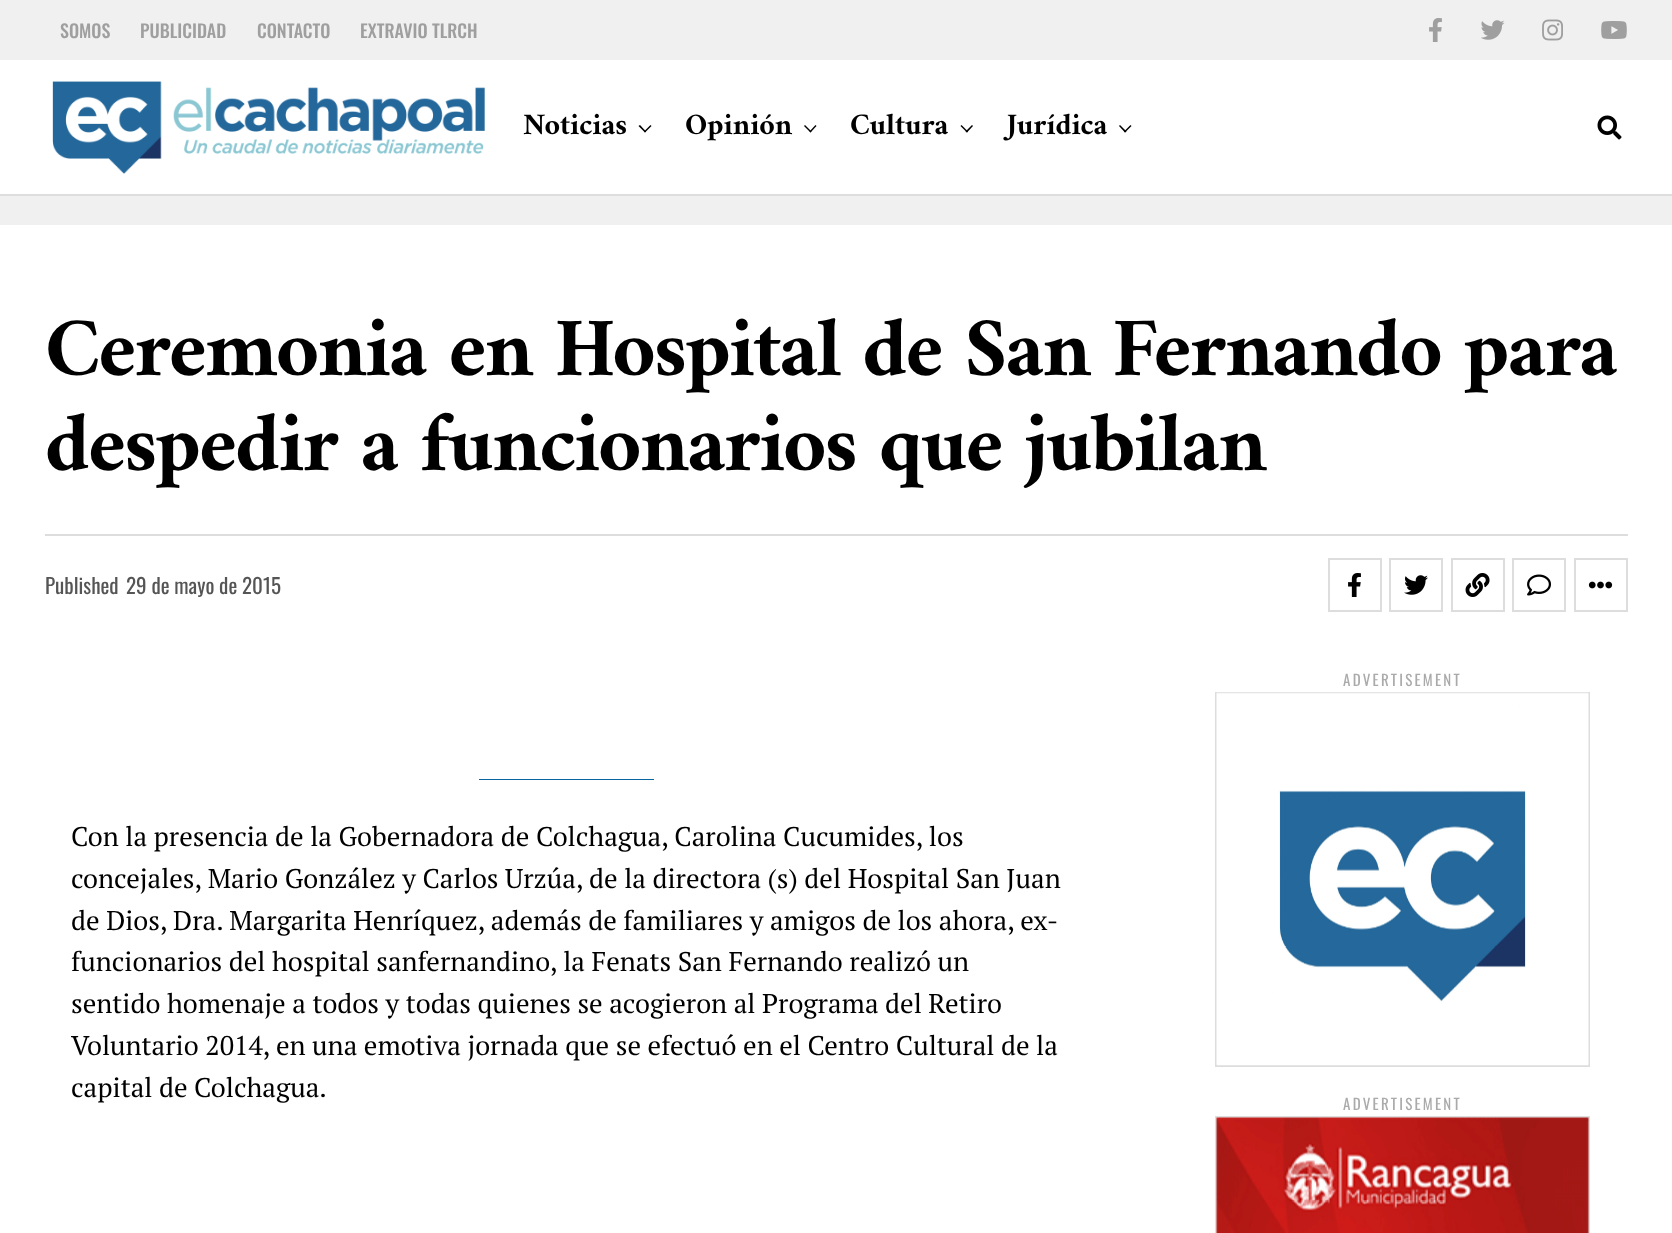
<!DOCTYPE html>
<meta charset="utf-8">
<style>body { margin: 0 } canvas { display: block }</style>
<canvas id="canvas" width="1672" height="1233"></canvas>
<img id="img1" src="images/1.png" hidden>
<img id="img2" src="images/2.png" hidden>
<img id="img3" src="images/3.png" hidden>
<img id="img4" src="images/4.png" hidden>
<img id="img5" src="images/5.png" hidden>
<img id="img6" src="images/6.png" hidden>
<img id="img7" src="images/7.png" hidden>
<img id="img8" src="images/8.png" hidden>
<img id="img9" src="images/9.png" hidden>
<img id="img10" src="images/10.png" hidden>
<img id="img11" src="images/11.png" hidden>
<img id="img12" src="images/12.png" hidden>
<img id="img13" src="images/13.png" hidden>
<script>
window.onload = function () {
    const canvas = document.getElementById('canvas');
    const context = canvas.getContext('2d');
    context.miterLimit = 4;
    context.fontKerning = 'normal';

    context.fillStyle = 'rgb(240, 240, 240)';
    context.fillRect(0, 0, 1672, 1233);
    context.drawImage(document.getElementById('img1'), 1429, 18, 13, 24);
    context.drawImage(document.getElementById('img2'), 1481, 20, 24, 20);
    context.drawImage(document.getElementById('img3'), 1542, 19, 21, 22);
    context.drawImage(document.getElementById('img4'), 1601, 21, 26, 18);
    context.fillStyle = 'rgb(255, 255, 255)';
    context.fillRect(0, 60, 1672, 134);
    context.fillStyle = 'rgb(221, 221, 221)';
    context.fillRect(0, 194, 1672, 2);
    context.drawImage(document.getElementById('img5'), 52, 81, 433, 93);
    context.fillStyle = 'rgb(0, 0, 0)';
    context.beginPath();
    context.moveTo(650.5, 125);
    context.lineTo(651.5, 126);
    context.lineTo(645, 132.5);
    context.lineTo(644, 131.5);
    context.closePath();
    context.fill();
    context.beginPath();
    context.moveTo(640, 125);
    context.lineTo(646, 131.5);
    context.lineTo(645, 132.5);
    context.lineTo(638.5, 126);
    context.closePath();
    context.fill();
    context.beginPath();
    context.moveTo(815.5, 125);
    context.lineTo(816.5, 126);
    context.lineTo(810.5, 132.5);
    context.lineTo(809.5, 131.5);
    context.closePath();
    context.fill();
    context.beginPath();
    context.moveTo(805, 125);
    context.lineTo(811.5, 131.5);
    context.lineTo(810.5, 132.5);
    context.lineTo(804, 126);
    context.closePath();
    context.fill();
    context.beginPath();
    context.moveTo(972, 125);
    context.lineTo(973, 126);
    context.lineTo(967, 132.5);
    context.lineTo(965.5, 131.5);
    context.closePath();
    context.fill();
    context.beginPath();
    context.moveTo(961.5, 125);
    context.lineTo(968, 131.5);
    context.lineTo(967, 132.5);
    context.lineTo(960.5, 126);
    context.closePath();
    context.fill();
    context.beginPath();
    context.moveTo(1130.5, 125);
    context.lineTo(1131.5, 126);
    context.lineTo(1125, 132.5);
    context.lineTo(1124, 131.5);
    context.closePath();
    context.fill();
    context.beginPath();
    context.moveTo(1120, 125);
    context.lineTo(1126.5, 131.5);
    context.lineTo(1125, 132.5);
    context.lineTo(1119, 126);
    context.closePath();
    context.fill();
    context.drawImage(document.getElementById('img6'), 1597, 115, 25, 25);
    context.fillStyle = 'rgb(255, 255, 255)';
    context.fillRect(0, 225, 1672, 1008);
    context.fillStyle = 'rgb(221, 221, 221)';
    context.fillRect(45, 534, 1583, 2);
    context.strokeStyle = 'rgb(221, 221, 221)';
    context.lineWidth = 2;
    context.strokeRect(1329, 559, 52, 52);
    context.drawImage(document.getElementById('img7'), 1348, 573, 13, 24);
    context.strokeRect(1390, 559, 52, 52);
    context.drawImage(document.getElementById('img8'), 1404, 575, 24, 20);
    context.strokeRect(1452, 559, 52, 52);
    context.drawImage(document.getElementById('img9'), 1465, 573, 25, 24);
    context.strokeRect(1513, 559, 52, 52);
    context.drawImage(document.getElementById('img10'), 1527, 574, 24, 22);
    context.strokeRect(1575, 559, 52, 52);
    context.drawImage(document.getElementById('img11'), 1588, 581, 25, 8);
    context.fillStyle = 'rgb(7, 101, 160)';
    context.fillRect(479, 779, 175, 1);
    context.strokeRect(1216, 693, 373, 373);
    context.drawImage(document.getElementById('img12'), 1216, 692, 373, 374);
    context.strokeRect(1216, 1117, 373, 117);
    context.drawImage(document.getElementById('img13'), 1216, 1117, 373, 116);
    context.font = '500 18px Oswald';
    context.fillStyle = 'rgb(159, 159, 159)';
    context.fillText('SOMOS', 60, 38);
    context.fillText('PUBLICIDAD', 140, 38);
    context.fillText('CONTACTO', 257, 38);
    context.fillText('EXTRAVIO TLRCH', 360, 38);
    context.font = 'bold 30px Amiri';
    context.fillStyle = 'rgb(0, 0, 0)';
    context.fillText('Noticias', 523, 134);
    context.fillText('Opinión', 685, 134);
    context.fillText('Cultura', 850, 134);
    context.fillText('Jurídica', 1007, 134);
    context.letterSpacing = '-1.7px';
    context.font = 'bold 84px Amiri';
    context.fillText('Ceremonia en Hospital de San Fernando para', 45, 375);
    context.fillText('despedir a funcionarios que jubilan', 45, 470);
    context.letterSpacing = '0px';
    context.font = '21px Oswald';
    context.fillStyle = 'rgb(85, 85, 85)';
    context.fillText('Published', 45, 594);
    context.fillText('29 de mayo de 2015', 126, 594);
    context.font = '27px PT Serif';
    context.fillStyle = 'rgb(0, 0, 0)';
    context.fillText('Con la presencia de la Gobernadora de Colchagua, Carolina Cucumides, los', 71, 846);
    context.fillText('concejales, Mario González y Carlos Urzúa, de la directora (s) del Hospital San Juan', 71, 888);
    context.fillText('de Dios, Dra. Margarita Henríquez, además de familiares y amigos de los ahora, ex-', 71, 930);
    context.fillText('funcionarios del hospital sanfernandino, la Fenats San Fernando realizó un', 71, 971);
    context.fillText('sentido homenaje a todos y todas quienes se acogieron al Programa del Retiro', 71, 1013);
    context.fillText('Voluntario 2014, en una emotiva jornada que se efectuó en el Centro Cultural de la', 71, 1055);
    context.fillText('capital de Colchagua.', 71, 1097);
    context.letterSpacing = '2.25px';
    context.font = '15px Oswald';
    context.fillStyle = 'rgb(170, 170, 170)';
    context.fillText('ADVERTISEMENT', 1343, 686);
    context.fillText('ADVERTISEMENT', 1343, 1110);
};
</script>
